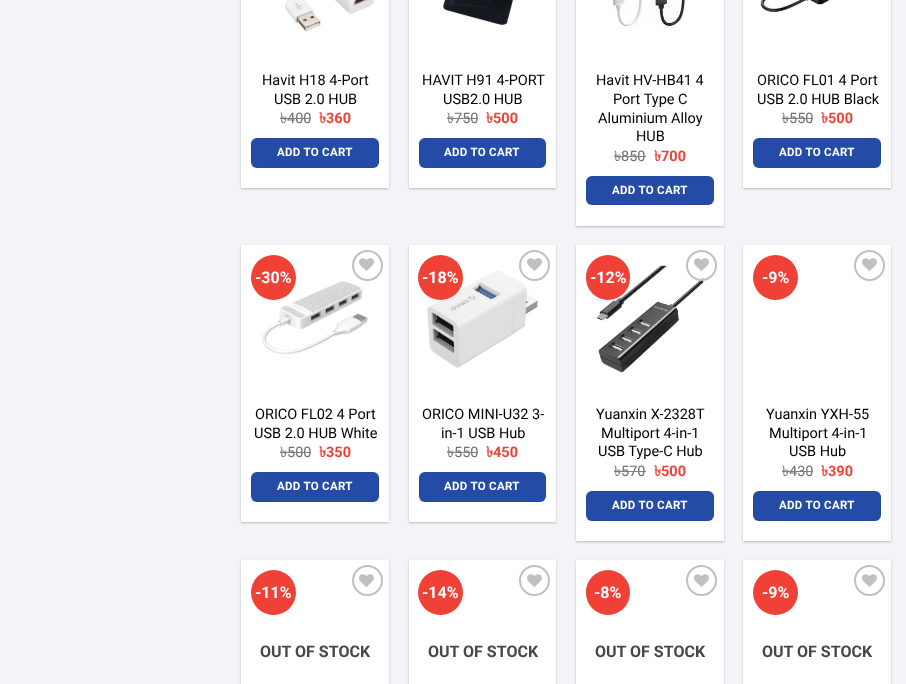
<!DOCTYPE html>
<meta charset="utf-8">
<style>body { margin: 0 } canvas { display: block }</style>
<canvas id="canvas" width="906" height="684"></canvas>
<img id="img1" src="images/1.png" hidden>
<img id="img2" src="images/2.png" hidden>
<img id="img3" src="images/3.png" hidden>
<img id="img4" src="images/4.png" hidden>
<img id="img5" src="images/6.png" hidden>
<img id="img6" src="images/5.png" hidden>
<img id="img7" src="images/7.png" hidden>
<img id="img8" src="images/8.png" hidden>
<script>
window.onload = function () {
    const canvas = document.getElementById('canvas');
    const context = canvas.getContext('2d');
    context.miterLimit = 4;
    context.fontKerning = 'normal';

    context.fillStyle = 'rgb(242, 244, 248)';
    context.fillRect(0, 0, 906, 684);
    context.fillStyle = 'rgba(0, 0, 0, 0.24)';
    context.filter = 'blur(1px)';
    context.beginPath();
    context.rect(241, -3, 148, 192);
    context.fill();
    context.filter = 'none';
    context.fillStyle = 'rgb(255, 255, 255)';
    context.fillRect(241, 0, 148, 188);
    context.drawImage(document.getElementById('img1'), 285, 0, 90, 32);
    context.fillStyle = 'rgb(36, 75, 165)';
    context.beginPath();
    context.roundRect(251, 138, 128, 30, 6);
    context.fill();
    context.strokeStyle = 'rgba(0, 0, 0, 0.05)';
    context.strokeRect(251.5, 138.5, 127, 29);
    context.fillStyle = 'rgba(0, 0, 0, 0.24)';
    context.filter = 'blur(1px)';
    context.beginPath();
    context.rect(409, -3, 147, 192);
    context.fill();
    context.filter = 'none';
    context.fillStyle = 'rgb(255, 255, 255)';
    context.fillRect(409, 0, 147, 188);
    context.drawImage(document.getElementById('img2'), 442, 0, 72, 27);
    context.fillStyle = 'rgb(36, 75, 165)';
    context.beginPath();
    context.roundRect(419, 138, 127, 30, 6);
    context.fill();
    context.strokeRect(419.5, 138.5, 126, 29);
    context.fillStyle = 'rgba(0, 0, 0, 0.24)';
    context.filter = 'blur(1px)';
    context.beginPath();
    context.rect(576, -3, 148, 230);
    context.fill();
    context.filter = 'none';
    context.fillStyle = 'rgb(255, 255, 255)';
    context.fillRect(576, 0, 148, 226);
    context.drawImage(document.getElementById('img3'), 611, 0, 74, 29);
    context.fillStyle = 'rgb(36, 75, 165)';
    context.beginPath();
    context.roundRect(586, 176, 128, 29, 6);
    context.fill();
    context.strokeRect(586.5, 176.5, 127, 28);
    context.fillStyle = 'rgba(0, 0, 0, 0.24)';
    context.filter = 'blur(1px)';
    context.beginPath();
    context.rect(743, -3, 148, 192);
    context.fill();
    context.filter = 'none';
    context.fillStyle = 'rgb(255, 255, 255)';
    context.fillRect(743, 0, 148, 188);
    context.drawImage(document.getElementById('img4'), 760, 0, 70, 12);
    context.fillStyle = 'rgb(36, 75, 165)';
    context.beginPath();
    context.roundRect(753, 138, 128, 30, 6);
    context.fill();
    context.strokeRect(753.5, 138.5, 127, 29);
    context.fillStyle = 'rgba(0, 0, 0, 0.24)';
    context.filter = 'blur(1px)';
    context.beginPath();
    context.rect(241, 246, 148, 277);
    context.fill();
    context.filter = 'none';
    context.fillStyle = 'rgb(255, 255, 255)';
    context.fillRect(241, 245, 148, 277);
    context.drawImage(document.getElementById('img5'), 262, 281, 107, 73);
    context.fillStyle = 'rgb(239, 65, 54)';
    context.beginPath();
    context.arc(273.5, 277.5, 22.5, 0, 2 * Math.PI);
    context.fill();
    context.beginPath();
    context.arc(367.5, 265.5, 14.5, 0, 2 * Math.PI);
    context.strokeStyle = 'rgb(192, 192, 192)';
    context.lineWidth = 2;
    context.stroke();
    context.drawImage(document.getElementById('img6'), 359, 258, 15, 13);
    context.fillStyle = 'rgb(36, 75, 165)';
    context.beginPath();
    context.roundRect(251, 472, 128, 30, 6);
    context.fill();
    context.strokeStyle = 'rgba(0, 0, 0, 0.05)';
    context.lineWidth = 1;
    context.strokeRect(251.5, 472.5, 127, 29);
    context.fillStyle = 'rgba(0, 0, 0, 0.24)';
    context.filter = 'blur(1px)';
    context.beginPath();
    context.rect(409, 246, 147, 277);
    context.fill();
    context.filter = 'none';
    context.fillStyle = 'rgb(255, 255, 255)';
    context.fillRect(409, 245, 147, 277);
    context.drawImage(document.getElementById('img7'), 427, 271, 111, 97);
    context.fillStyle = 'rgb(239, 65, 54)';
    context.beginPath();
    context.arc(440.5, 277.5, 22.5, 0, 2 * Math.PI);
    context.fill();
    context.beginPath();
    context.arc(534.5, 265.5, 14.5, 0, 2 * Math.PI);
    context.strokeStyle = 'rgb(192, 192, 192)';
    context.lineWidth = 2;
    context.stroke();
    context.drawImage(document.getElementById('img6'), 527, 258, 15, 13);
    context.fillStyle = 'rgb(36, 75, 165)';
    context.beginPath();
    context.roundRect(419, 472, 127, 30, 6);
    context.fill();
    context.strokeStyle = 'rgba(0, 0, 0, 0.05)';
    context.lineWidth = 1;
    context.strokeRect(419.5, 472.5, 126, 29);
    context.fillStyle = 'rgba(0, 0, 0, 0.24)';
    context.filter = 'blur(1px)';
    context.beginPath();
    context.rect(576, 246, 148, 296);
    context.fill();
    context.filter = 'none';
    context.fillStyle = 'rgb(255, 255, 255)';
    context.fillRect(576, 245, 148, 296);
    context.drawImage(document.getElementById('img8'), 596, 265, 108, 108);
    context.fillStyle = 'rgb(239, 65, 54)';
    context.beginPath();
    context.roundRect(586, 255, 44, 45, 22);
    context.fill();
    context.beginPath();
    context.arc(701.5, 265.5, 14.5, 0, 2 * Math.PI);
    context.strokeStyle = 'rgb(192, 192, 192)';
    context.lineWidth = 2;
    context.stroke();
    context.drawImage(document.getElementById('img6'), 694, 258, 15, 13);
    context.fillStyle = 'rgb(36, 75, 165)';
    context.beginPath();
    context.roundRect(586, 491, 128, 30, 6);
    context.fill();
    context.strokeStyle = 'rgba(0, 0, 0, 0.05)';
    context.lineWidth = 1;
    context.strokeRect(586.5, 491.5, 127, 29);
    context.fillStyle = 'rgba(0, 0, 0, 0.24)';
    context.filter = 'blur(1px)';
    context.beginPath();
    context.rect(743, 246, 148, 296);
    context.fill();
    context.filter = 'none';
    context.fillStyle = 'rgb(255, 255, 255)';
    context.fillRect(743, 245, 148, 296);
    context.fillStyle = 'rgb(239, 65, 54)';
    context.beginPath();
    context.arc(775.5, 277.5, 22.5, 0, 2 * Math.PI);
    context.fill();
    context.beginPath();
    context.arc(869.5, 265.5, 14.5, 0, 2 * Math.PI);
    context.strokeStyle = 'rgb(192, 192, 192)';
    context.lineWidth = 2;
    context.stroke();
    context.drawImage(document.getElementById('img6'), 862, 258, 15, 13);
    context.fillStyle = 'rgb(36, 75, 165)';
    context.beginPath();
    context.roundRect(753, 491, 128, 30, 6);
    context.fill();
    context.strokeStyle = 'rgba(0, 0, 0, 0.05)';
    context.lineWidth = 1;
    context.strokeRect(753.5, 491.5, 127, 29);
    context.fillStyle = 'rgba(0, 0, 0, 0.24)';
    context.filter = 'blur(1px)';
    context.beginPath();
    context.rect(241, 561, 148, 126);
    context.fill();
    context.filter = 'none';
    context.fillStyle = 'rgb(255, 255, 255)';
    context.fillRect(241, 560, 148, 124);
    context.fillStyle = 'rgb(239, 65, 54)';
    context.beginPath();
    context.arc(273.5, 592.5, 22.5, 0, 2 * Math.PI);
    context.fill();
    context.beginPath();
    context.arc(367.5, 580.5, 14.5, 0, 2 * Math.PI);
    context.strokeStyle = 'rgb(192, 192, 192)';
    context.lineWidth = 2;
    context.stroke();
    context.drawImage(document.getElementById('img6'), 359, 574, 15, 13);
    context.fillStyle = 'rgba(0, 0, 0, 0.24)';
    context.filter = 'blur(1px)';
    context.beginPath();
    context.rect(409, 561, 147, 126);
    context.fill();
    context.filter = 'none';
    context.fillStyle = 'rgb(255, 255, 255)';
    context.fillRect(409, 560, 147, 124);
    context.fillStyle = 'rgb(239, 65, 54)';
    context.beginPath();
    context.arc(440.5, 592.5, 22.5, 0, 2 * Math.PI);
    context.fill();
    context.beginPath();
    context.arc(534.5, 580.5, 14.5, 0, 2 * Math.PI);
    context.stroke();
    context.drawImage(document.getElementById('img6'), 527, 574, 15, 13);
    context.fillStyle = 'rgba(0, 0, 0, 0.24)';
    context.filter = 'blur(1px)';
    context.beginPath();
    context.rect(576, 561, 148, 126);
    context.fill();
    context.filter = 'none';
    context.fillStyle = 'rgb(255, 255, 255)';
    context.fillRect(576, 560, 148, 124);
    context.fillStyle = 'rgb(239, 65, 54)';
    context.beginPath();
    context.roundRect(586, 570, 44, 45, 22);
    context.fill();
    context.beginPath();
    context.arc(701.5, 580.5, 14.5, 0, 2 * Math.PI);
    context.stroke();
    context.drawImage(document.getElementById('img6'), 694, 574, 15, 13);
    context.fillStyle = 'rgba(0, 0, 0, 0.24)';
    context.filter = 'blur(1px)';
    context.beginPath();
    context.rect(743, 561, 148, 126);
    context.fill();
    context.filter = 'none';
    context.fillStyle = 'rgb(255, 255, 255)';
    context.fillRect(743, 560, 148, 124);
    context.fillStyle = 'rgb(239, 65, 54)';
    context.beginPath();
    context.arc(775.5, 592.5, 22.5, 0, 2 * Math.PI);
    context.fill();
    context.beginPath();
    context.arc(869.5, 580.5, 14.5, 0, 2 * Math.PI);
    context.stroke();
    context.drawImage(document.getElementById('img6'), 862, 574, 15, 13);
    context.font = '14.5px Roboto';
    context.fillStyle = 'rgb(0, 0, 0)';
    context.fillText('Havit H18 4-Port', 262, 85);
    context.fillText('USB 2.0 HUB', 274, 104);
    context.font = '14.5px Lohit Bengali';
    context.fillStyle = 'rgb(112, 112, 112)';
    context.fillText('৳', 280, 123);
    context.font = '14.5px Roboto';
    context.fillText('400', 287, 123);
    context.fillStyle = 'rgb(130, 126, 126)';
    context.fillRect(280, 118, 7, 1);
    context.fillRect(287, 118, 24, 1);
    context.font = 'bold 14.5px Lohit Bengali';
    context.fillStyle = 'rgb(239, 65, 54)';
    context.fillText('৳', 319, 123);
    context.font = 'bold 14.5px Roboto';
    context.fillText('360', 326, 123);
    context.letterSpacing = '0.3px';
    context.font = 'bold 11.5px Roboto';
    context.fillStyle = 'rgb(255, 255, 255)';
    context.fillText('ADD TO CART', 277, 156);
    context.letterSpacing = '0px';
    context.font = '14.5px Roboto';
    context.fillStyle = 'rgb(0, 0, 0)';
    context.fillText('HAVIT H91 4-PORT', 422, 85);
    context.fillText('USB2.0 HUB', 443, 104);
    context.font = '14.5px Lohit Bengali';
    context.fillStyle = 'rgb(112, 112, 112)';
    context.fillText('৳', 447, 123);
    context.font = '14.5px Roboto';
    context.fillText('750', 454, 123);
    context.fillStyle = 'rgb(130, 126, 126)';
    context.fillRect(447, 118, 7, 1);
    context.fillRect(454, 118, 24, 1);
    context.font = 'bold 14.5px Lohit Bengali';
    context.fillStyle = 'rgb(239, 65, 54)';
    context.fillText('৳', 486, 123);
    context.font = 'bold 14.5px Roboto';
    context.fillText('500', 493, 123);
    context.letterSpacing = '0.3px';
    context.font = 'bold 11.5px Roboto';
    context.fillStyle = 'rgb(255, 255, 255)';
    context.fillText('ADD TO CART', 444, 156);
    context.letterSpacing = '0px';
    context.font = '14.5px Roboto';
    context.fillStyle = 'rgb(0, 0, 0)';
    context.fillText('Havit HV-HB41 4', 596, 85);
    context.fillText('Port Type C', 613, 104);
    context.fillText('Aluminium Alloy', 598, 123);
    context.fillText('HUB', 636, 141);
    context.font = '14.5px Lohit Bengali';
    context.fillStyle = 'rgb(112, 112, 112)';
    context.fillText('৳', 614, 161);
    context.fillStyle = 'rgb(130, 126, 126)';
    context.fillRect(614, 156, 7, 1);
    context.font = '14.5px Roboto';
    context.fillStyle = 'rgb(112, 112, 112)';
    context.fillText('850', 621, 161);
    context.fillStyle = 'rgb(130, 126, 126)';
    context.fillRect(621, 156, 25, 1);
    context.font = 'bold 14.5px Lohit Bengali';
    context.fillStyle = 'rgb(239, 65, 54)';
    context.fillText('৳', 654, 161);
    context.font = 'bold 14.5px Roboto';
    context.fillText('700', 661, 161);
    context.letterSpacing = '0.3px';
    context.font = 'bold 11.5px Roboto';
    context.fillStyle = 'rgb(255, 255, 255)';
    context.fillText('ADD TO CART', 612, 194);
    context.letterSpacing = '0px';
    context.font = '14.5px Roboto';
    context.fillStyle = 'rgb(0, 0, 0)';
    context.fillText('ORICO FL01 4 Port', 757, 85);
    context.fillText('USB 2.0 HUB Black', 757, 104);
    context.font = '14.5px Lohit Bengali';
    context.fillStyle = 'rgb(112, 112, 112)';
    context.fillText('৳', 782, 123);
    context.font = '14.5px Roboto';
    context.fillText('550', 789, 123);
    context.fillStyle = 'rgb(130, 126, 126)';
    context.fillRect(782, 118, 7, 1);
    context.fillRect(789, 118, 24, 1);
    context.font = 'bold 14.5px Lohit Bengali';
    context.fillStyle = 'rgb(239, 65, 54)';
    context.fillText('৳', 821, 123);
    context.font = 'bold 14.5px Roboto';
    context.fillText('500', 828, 123);
    context.letterSpacing = '0.3px';
    context.font = 'bold 11.5px Roboto';
    context.fillStyle = 'rgb(255, 255, 255)';
    context.fillText('ADD TO CART', 779, 156);
    context.letterSpacing = '0px';
    context.font = 'bold 16px Roboto';
    context.fillText('-30%', 255, 283);
    context.font = '14.5px Roboto';
    context.fillStyle = 'rgb(0, 0, 0)';
    context.fillText('ORICO FL02 4 Port', 255, 419);
    context.fillText('USB 2.0 HUB White', 254, 438);
    context.font = '14.5px Lohit Bengali';
    context.fillStyle = 'rgb(112, 112, 112)';
    context.fillText('৳', 280, 457);
    context.font = '14.5px Roboto';
    context.fillText('500', 287, 457);
    context.fillStyle = 'rgb(130, 126, 126)';
    context.fillRect(280, 452, 7, 1);
    context.fillRect(287, 452, 24, 1);
    context.font = 'bold 14.5px Lohit Bengali';
    context.fillStyle = 'rgb(239, 65, 54)';
    context.fillText('৳', 319, 457);
    context.font = 'bold 14.5px Roboto';
    context.fillText('350', 326, 457);
    context.letterSpacing = '0.3px';
    context.font = 'bold 11.5px Roboto';
    context.fillStyle = 'rgb(255, 255, 255)';
    context.fillText('ADD TO CART', 277, 490);
    context.letterSpacing = '0px';
    context.font = 'bold 16px Roboto';
    context.fillText('-18%', 422, 283);
    context.font = '14.5px Roboto';
    context.fillStyle = 'rgb(0, 0, 0)';
    context.fillText('ORICO MINI-U32 3-', 422, 419);
    context.fillText('in-1 USB Hub', 441, 438);
    context.font = '14.5px Lohit Bengali';
    context.fillStyle = 'rgb(112, 112, 112)';
    context.fillText('৳', 447, 457);
    context.fillStyle = 'rgb(130, 126, 126)';
    context.fillRect(447, 452, 7, 1);
    context.font = '14.5px Roboto';
    context.fillStyle = 'rgb(112, 112, 112)';
    context.fillText('550', 454, 457);
    context.fillStyle = 'rgb(130, 126, 126)';
    context.fillRect(454, 452, 24, 1);
    context.font = 'bold 14.5px Lohit Bengali';
    context.fillStyle = 'rgb(239, 65, 54)';
    context.fillText('৳', 486, 457);
    context.font = 'bold 14.5px Roboto';
    context.fillText('450', 493, 457);
    context.letterSpacing = '0.3px';
    context.font = 'bold 11.5px Roboto';
    context.fillStyle = 'rgb(255, 255, 255)';
    context.fillText('ADD TO CART', 444, 490);
    context.letterSpacing = '0px';
    context.font = 'bold 16px Roboto';
    context.fillText('-12%', 590, 283);
    context.font = '14.5px Roboto';
    context.fillStyle = 'rgb(0, 0, 0)';
    context.fillText('Yuanxin X-2328T', 596, 419);
    context.fillText('Multiport 4-in-1', 601, 438);
    context.fillText('USB Type-C Hub', 598, 456);
    context.font = '14.5px Lohit Bengali';
    context.fillStyle = 'rgb(112, 112, 112)';
    context.fillText('৳', 614, 476);
    context.fillStyle = 'rgb(130, 126, 126)';
    context.fillRect(614, 471, 7, 1);
    context.font = '14.5px Roboto';
    context.fillStyle = 'rgb(112, 112, 112)';
    context.fillText('570', 621, 476);
    context.fillStyle = 'rgb(130, 126, 126)';
    context.fillRect(621, 471, 25, 1);
    context.font = 'bold 14.5px Lohit Bengali';
    context.fillStyle = 'rgb(239, 65, 54)';
    context.fillText('৳', 654, 476);
    context.font = 'bold 14.5px Roboto';
    context.fillText('500', 661, 476);
    context.letterSpacing = '0.3px';
    context.font = 'bold 11.5px Roboto';
    context.fillStyle = 'rgb(255, 255, 255)';
    context.fillText('ADD TO CART', 612, 509);
    context.letterSpacing = '0px';
    context.font = 'bold 16px Roboto';
    context.fillText('-9%', 762, 283);
    context.font = '14.5px Roboto';
    context.fillStyle = 'rgb(0, 0, 0)';
    context.fillText('Yuanxin YXH-55', 766, 419);
    context.fillText('Multiport 4-in-1', 769, 438);
    context.fillText('USB Hub', 789, 456);
    context.font = '14.5px Lohit Bengali';
    context.fillStyle = 'rgb(112, 112, 112)';
    context.fillText('৳', 782, 476);
    context.font = '14.5px Roboto';
    context.fillText('430', 789, 476);
    context.fillStyle = 'rgb(130, 126, 126)';
    context.fillRect(782, 471, 7, 1);
    context.fillRect(789, 471, 24, 1);
    context.font = 'bold 14.5px Lohit Bengali';
    context.fillStyle = 'rgb(239, 65, 54)';
    context.fillText('৳', 821, 476);
    context.font = 'bold 14.5px Roboto';
    context.fillText('390', 828, 476);
    context.letterSpacing = '0.3px';
    context.font = 'bold 11.5px Roboto';
    context.fillStyle = 'rgb(255, 255, 255)';
    context.fillText('ADD TO CART', 779, 509);
    context.letterSpacing = '0px';
    context.font = 'bold 16px Roboto';
    context.fillText('-11%', 255, 598);
    context.fillStyle = 'rgb(71, 71, 71)';
    context.fillText('OUT OF STOCK', 260, 657);
    context.fillStyle = 'rgb(255, 255, 255)';
    context.fillText('-14%', 422, 598);
    context.fillStyle = 'rgb(71, 71, 71)';
    context.fillText('OUT OF STOCK', 428, 657);
    context.fillStyle = 'rgb(255, 255, 255)';
    context.fillText('-8%', 594, 598);
    context.fillStyle = 'rgb(71, 71, 71)';
    context.fillText('OUT OF STOCK', 595, 657);
    context.fillStyle = 'rgb(255, 255, 255)';
    context.fillText('-9%', 762, 598);
    context.fillStyle = 'rgb(71, 71, 71)';
    context.fillText('OUT OF STOCK', 762, 657);
};
</script>
